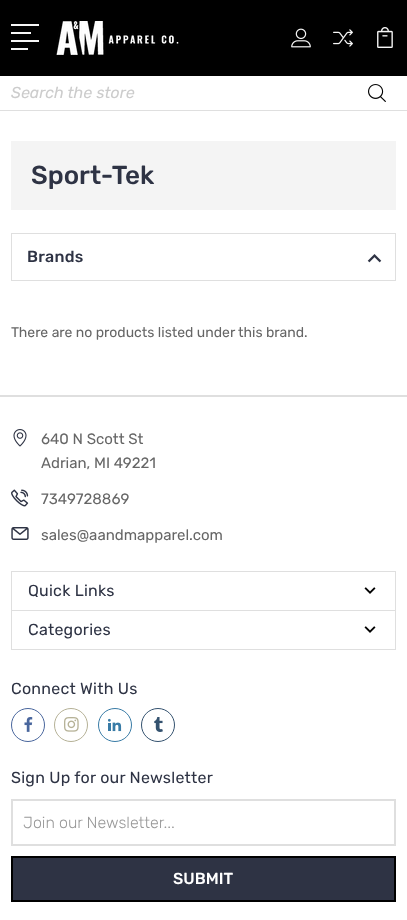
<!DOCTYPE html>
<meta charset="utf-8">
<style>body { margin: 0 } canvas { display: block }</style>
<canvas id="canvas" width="407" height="920"></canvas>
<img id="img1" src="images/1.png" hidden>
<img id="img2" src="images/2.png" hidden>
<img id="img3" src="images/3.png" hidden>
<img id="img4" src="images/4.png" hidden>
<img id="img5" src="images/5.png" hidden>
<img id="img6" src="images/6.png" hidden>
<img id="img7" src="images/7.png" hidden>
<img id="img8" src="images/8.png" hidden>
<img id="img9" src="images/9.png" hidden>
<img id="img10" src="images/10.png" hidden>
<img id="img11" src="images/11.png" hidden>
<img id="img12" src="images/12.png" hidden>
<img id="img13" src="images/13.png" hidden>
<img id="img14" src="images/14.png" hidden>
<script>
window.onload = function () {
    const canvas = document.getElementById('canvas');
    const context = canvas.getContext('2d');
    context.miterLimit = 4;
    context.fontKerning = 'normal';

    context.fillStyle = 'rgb(255, 255, 255)';
    context.fillRect(0, 0, 407, 920);
    context.fillStyle = 'rgb(0, 0, 0)';
    context.fillRect(0, 0, 407, 76);
    context.fillStyle = 'rgb(246, 246, 246)';
    context.fillRect(11, 24, 28, 2);
    context.fillRect(11, 32, 20, 2);
    context.fillRect(11, 40, 28, 2);
    context.fillRect(11, 48, 17, 2);
    context.drawImage(document.getElementById('img1'), 56, 21, 123, 34);
    context.drawImage(document.getElementById('img2'), 291, 28, 20, 20);
    context.drawImage(document.getElementById('img3'), 333, 29, 20, 18);
    context.drawImage(document.getElementById('img4'), 377, 27, 16, 21);
    context.fillStyle = 'rgb(223, 223, 223)';
    context.fillRect(0, 110, 407, 1);
    context.drawImage(document.getElementById('img5'), 368, 84, 18, 18);
    context.fillStyle = 'rgb(244, 244, 244)';
    context.fillRect(11, 141, 385, 69);
    context.strokeStyle = 'rgb(223, 223, 223)';
    context.strokeRect(11.5, 233.5, 384, 47);
    context.drawImage(document.getElementById('img6'), 367, 254, 15, 9);
    context.fillStyle = 'rgb(223, 223, 223)';
    context.fillRect(0, 395, 407, 2);
    context.drawImage(document.getElementById('img7'), 13, 429, 14, 18);
    context.drawImage(document.getElementById('img8'), 11, 489, 18, 18);
    context.drawImage(document.getElementById('img9'), 11, 527, 18, 13);
    context.strokeRect(11.5, 571.5, 384, 39);
    context.drawImage(document.getElementById('img10'), 364, 587, 12, 7);
    context.strokeRect(11.5, 610.5, 384, 39);
    context.drawImage(document.getElementById('img10'), 364, 626, 12, 7);
    context.beginPath();
    context.arc(28, 725, 16.5, 0, 2 * Math.PI);
    context.strokeStyle = 'rgb(73, 102, 157)';
    context.stroke();
    context.drawImage(document.getElementById('img11'), 24, 717, 9, 15);
    context.beginPath();
    context.arc(71, 725, 16.5, 0, 2 * Math.PI);
    context.strokeStyle = 'rgb(181, 177, 150)';
    context.stroke();
    context.drawImage(document.getElementById('img12'), 64, 717, 15, 15);
    context.beginPath();
    context.arc(115, 725, 16.5, 0, 2 * Math.PI);
    context.strokeStyle = 'rgb(56, 123, 166)';
    context.stroke();
    context.drawImage(document.getElementById('img13'), 108, 718, 14, 14);
    context.beginPath();
    context.arc(158, 725, 16.5, 0, 2 * Math.PI);
    context.strokeStyle = 'rgb(52, 82, 111)';
    context.stroke();
    context.drawImage(document.getElementById('img14'), 154, 717, 9, 15);
    context.strokeStyle = 'rgb(223, 223, 223)';
    context.lineWidth = 2;
    context.strokeRect(12, 800, 383, 45);
    context.fillStyle = 'rgb(46, 51, 68)';
    context.beginPath();
    context.rect(12, 857, 383, 44);
    context.fill();
    context.strokeStyle = 'rgb(0, 0, 0)';
    context.stroke();
    context.font = 'italic 16px Rubik';
    context.fillStyle = 'rgb(204, 204, 204)';
    context.fillText('Search the store', 11, 98);
    context.font = '500 26px Rubik';
    context.fillStyle = 'rgb(46, 51, 68)';
    context.fillText('Sport-Tek', 31, 184);
    context.letterSpacing = '0.25px';
    context.font = '500 16px Rubik';
    context.fillText('Brands', 27, 262);
    context.letterSpacing = '0px';
    context.font = '14px Rubik';
    context.fillStyle = 'rgb(102, 102, 102)';
    context.fillText('There are no products listed under this brand.', 11, 337);
    context.font = '15px Rubik';
    context.fillText('640 N Scott St', 41, 444);
    context.fillText('Adrian, MI 49221', 41, 468);
    context.fillText('7349728869', 41, 504);
    context.fillText('sales@aandmapparel.com', 41, 540);
    context.letterSpacing = '0.25px';
    context.font = '16px Rubik';
    context.fillStyle = 'rgb(46, 51, 68)';
    context.fillText('Quick Links', 28, 596);
    context.fillText('Categories', 28, 635);
    context.fillText('Connect With Us', 11, 694);
    context.fillText('Sign Up for our Newsletter', 11, 783);
    context.letterSpacing = '0px';
    context.font = '300 16px Rubik';
    context.fillStyle = 'rgb(153, 153, 153)';
    context.fillText('Join our Newsletter...', 23, 828);
    context.font = '500 16px Rubik';
    context.fillStyle = 'rgb(255, 255, 255)';
    context.fillText('SUBMIT', 173, 884);
};
</script>
